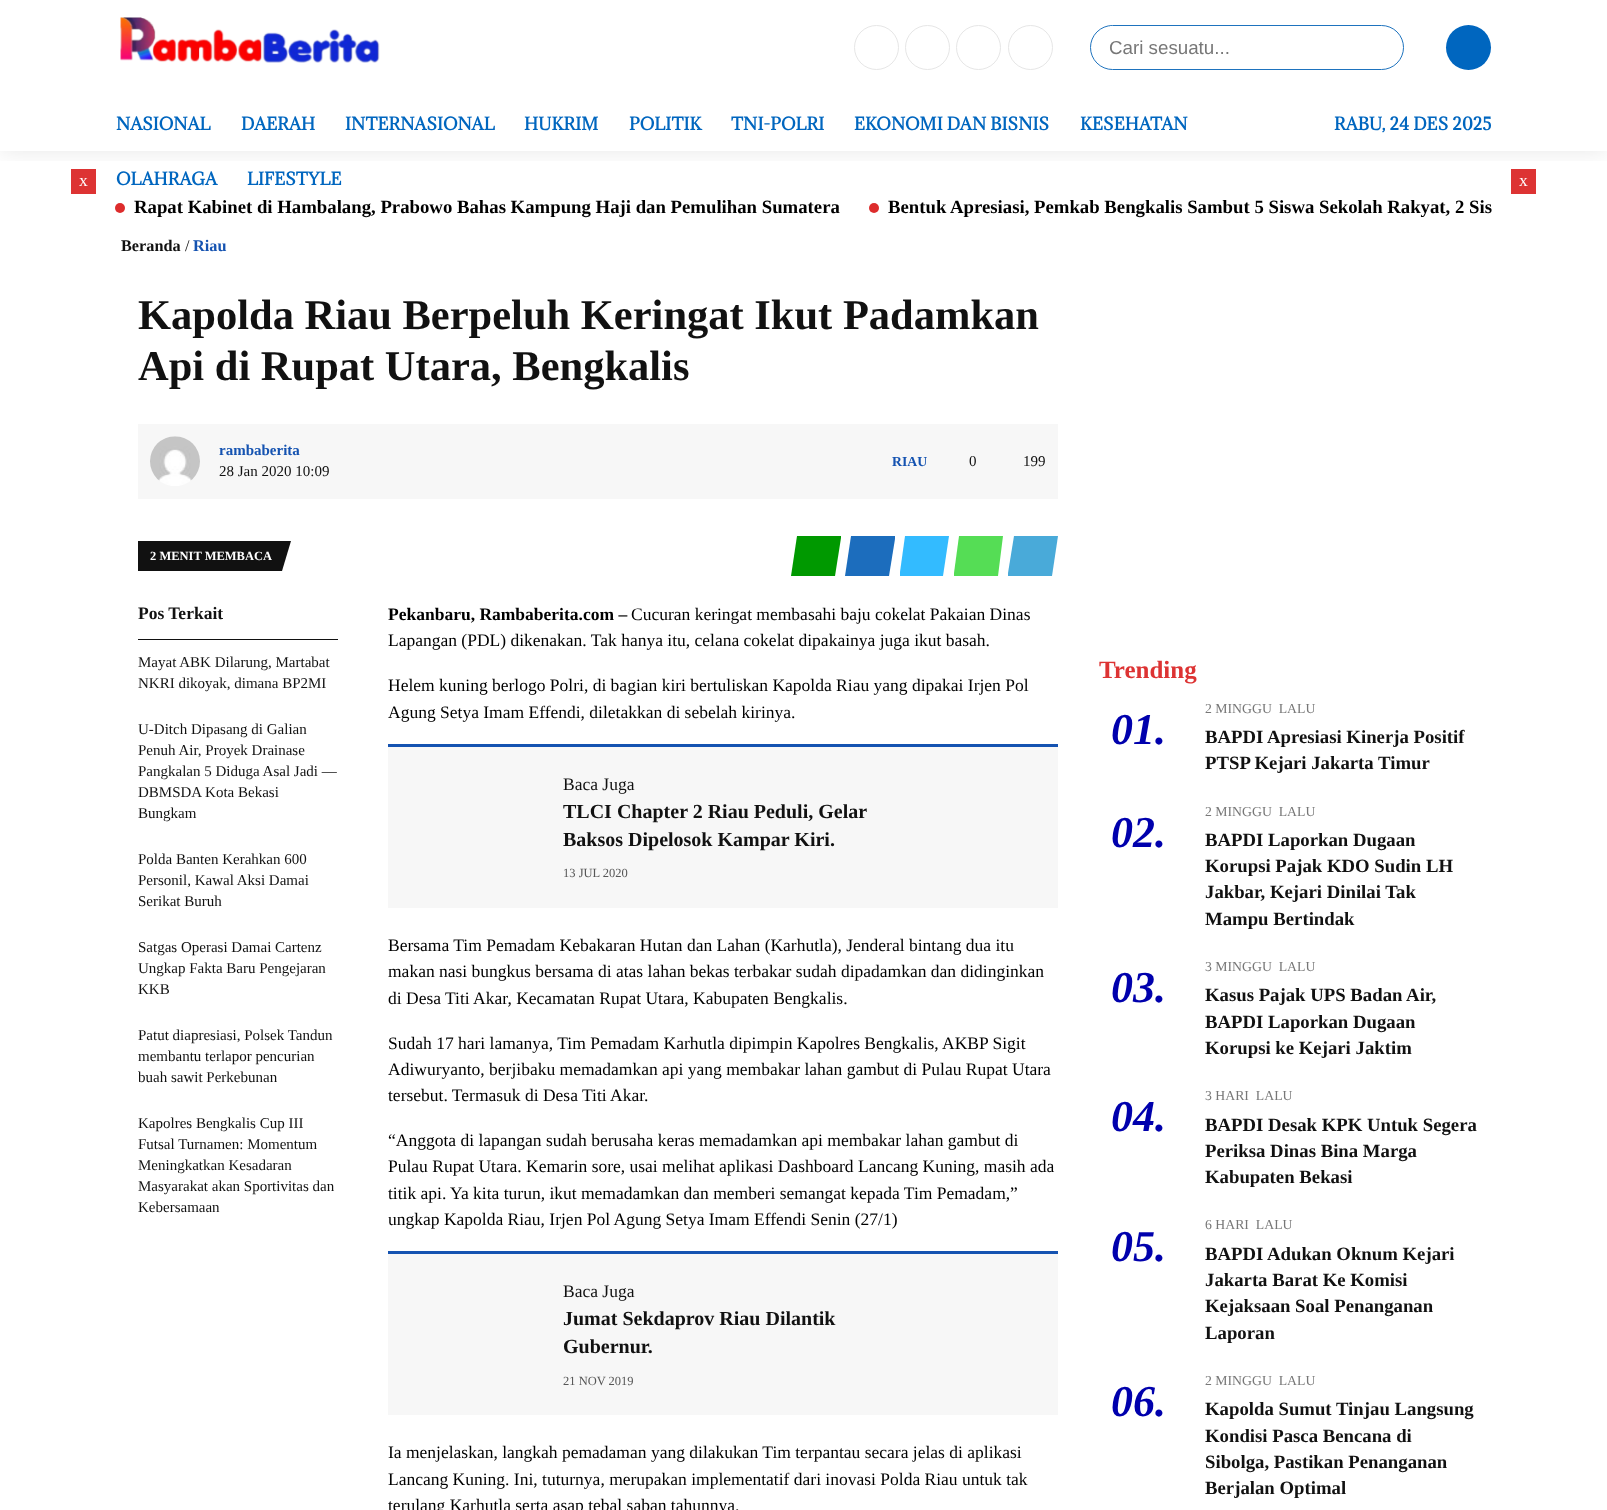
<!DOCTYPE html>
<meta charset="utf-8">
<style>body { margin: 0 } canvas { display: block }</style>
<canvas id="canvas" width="1607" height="1510"></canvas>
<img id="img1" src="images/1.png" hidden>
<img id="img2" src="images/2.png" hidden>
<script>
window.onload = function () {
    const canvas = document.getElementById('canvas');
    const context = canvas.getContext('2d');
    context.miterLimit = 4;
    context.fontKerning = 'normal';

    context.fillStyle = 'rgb(255, 255, 255)';
    context.fillRect(0, 0, 1607, 1510);
    context.fillStyle = 'rgb(221, 51, 51)';
    context.fillRect(71, 169, 25, 25);
    context.fillRect(1511, 169, 25, 25);
    context.save();
    context.beginPath();
    context.rect(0, 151, 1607, 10);
    context.clip();
    context.fillStyle = 'rgba(0, 0, 0, 0.1)';
    context.filter = 'blur(12.5px)';
    context.beginPath();
    context.rect(0, 0, 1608, 150);
    context.fill();
    context.filter = 'none';
    context.restore();
    context.drawImage(document.getElementById('img1'), 120, 17, 260, 46);
    context.beginPath();
    context.arc(876.5, 47.5, 22, 0, 2 * Math.PI);
    context.strokeStyle = 'rgb(230, 230, 230)';
    context.stroke();
    context.beginPath();
    context.arc(927.5, 47.5, 22, 0, 2 * Math.PI);
    context.stroke();
    context.beginPath();
    context.arc(978.5, 47.5, 22, 0, 2 * Math.PI);
    context.stroke();
    context.beginPath();
    context.arc(1030.5, 47.5, 22, 0, 2 * Math.PI);
    context.stroke();
    context.beginPath();
    context.roundRect(1090.5, 25.5, 313, 44, 22);
    context.strokeStyle = 'rgb(30, 115, 190)';
    context.stroke();
    context.fillStyle = 'rgb(255, 255, 255)';
    context.fillRect(1110, 26, 2, 1);
    context.fillStyle = 'rgb(0, 102, 191)';
    context.beginPath();
    context.arc(1468.5, 47.5, 22.5, 0, 2 * Math.PI);
    context.fill();
    context.fillStyle = 'rgb(255, 255, 255)';
    context.fillRect(0, 150, 1607, 1);
    context.fillStyle = 'rgb(221, 44, 44)';
    context.beginPath();
    context.arc(120, 208, 5, 0, 2 * Math.PI);
    context.fill();
    context.beginPath();
    context.arc(874, 208, 5, 0, 2 * Math.PI);
    context.fill();
    context.fillStyle = 'rgb(247, 247, 247)';
    context.fillRect(138, 424, 920, 75);
    context.drawImage(document.getElementById('img2'), 150, 436, 50, 50);
    context.fillStyle = 'rgb(17, 17, 17)';
    context.beginPath();
    context.moveTo(282, 571);
    context.lineTo(138, 571);
    context.lineTo(138, 541);
    context.lineTo(291, 541);
    context.closePath();
    context.fill();
    context.fillStyle = 'rgb(0, 153, 0)';
    context.beginPath();
    context.moveTo(797, 536);
    context.lineTo(841, 536);
    context.lineTo(841, 538);
    context.lineTo(835, 576);
    context.lineTo(791, 576);
    context.closePath();
    context.fill();
    context.fillStyle = 'rgb(28, 109, 189)';
    context.beginPath();
    context.moveTo(851, 536);
    context.lineTo(895, 536);
    context.lineTo(895, 539);
    context.lineTo(889, 576);
    context.lineTo(845, 576);
    context.closePath();
    context.fill();
    context.fillStyle = 'rgb(51, 187, 255)';
    context.beginPath();
    context.moveTo(905, 536);
    context.lineTo(949, 536);
    context.lineTo(943, 576);
    context.lineTo(900, 576);
    context.lineTo(900, 572);
    context.closePath();
    context.fill();
    context.fillStyle = 'rgb(85, 221, 85)';
    context.beginPath();
    context.moveTo(959, 536);
    context.lineTo(1003, 536);
    context.lineTo(998, 576);
    context.lineTo(954, 576);
    context.lineTo(954, 573);
    context.closePath();
    context.fill();
    context.fillStyle = 'rgb(73, 170, 217)';
    context.beginPath();
    context.moveTo(1014, 536);
    context.lineTo(1058, 536);
    context.lineTo(1052, 576);
    context.lineTo(1008, 576);
    context.lineTo(1008, 573);
    context.closePath();
    context.fill();
    context.fillStyle = 'rgb(17, 17, 17)';
    context.fillRect(138, 639, 200, 1);
    context.fillStyle = 'rgb(247, 247, 247)';
    context.fillRect(388, 747, 670, 161);
    context.fillStyle = 'rgb(21, 83, 177)';
    context.fillRect(388, 744, 670, 3);
    context.fillStyle = 'rgb(247, 247, 247)';
    context.fillRect(388, 1254, 670, 161);
    context.fillStyle = 'rgb(21, 83, 177)';
    context.fillRect(388, 1251, 670, 3);
    context.font = '17.5px Liberation Serif';
    context.fillStyle = 'rgb(255, 255, 255)';
    context.fillText('x', 79, 186);
    context.font = '18.75px Liberation Sans';
    context.fillStyle = 'rgb(119, 119, 119)';
    context.fillText('Cari sesuatu...', 1109, 54);
    context.font = 'bold 16.25px Adamina';
    context.fillStyle = 'rgb(0, 102, 191)';
    context.fillText('NASIONAL', 116, 130);
    context.fillText('DAERAH', 241, 130);
    context.fillText('INTERNASIONAL', 345, 130);
    context.fillText('HUKRIM', 524, 130);
    context.fillText('POLITIK', 629, 130);
    context.fillText('TNI-POLRI', 731, 130);
    context.fillText('EKONOMI DAN BISNIS', 854, 130);
    context.fillText('KESEHATAN', 1080, 130);
    context.fillText('OLAHRAGA', 116, 185);
    context.fillText('LIFESTYLE', 247, 185);
    context.fillText('RABU, 24 DES 2025', 1334, 130);
    context.font = '17.5px Liberation Serif';
    context.fillStyle = 'rgb(255, 255, 255)';
    context.fillText('x', 1519, 186);
    context.font = 'bold 18.75px Liberation Serif';
    context.fillStyle = 'rgb(0, 0, 0)';
    context.fillText('Rapat Kabinet di Hambalang, Prabowo Bahas Kampung Haji dan Pemulihan Sumatera', 134, 213);
    context.fillText('Bentuk Apresiasi, Pemkab Bengkalis Sambut 5 Siswa Sekolah Rakyat, 2 Sis', 888, 213);
    context.font = 'bold 16.25px Liberation Serif';
    context.fillStyle = 'rgb(17, 17, 17)';
    context.fillText('Beranda', 121, 251);
    context.font = '16.25px Liberation Serif';
    context.fillText('/', 185, 251);
    context.font = 'bold 16.25px Liberation Serif';
    context.fillStyle = 'rgb(21, 83, 177)';
    context.fillText('Riau', 193, 251);
    context.font = 'bold 42.5px Liberation Serif';
    context.fillStyle = 'rgb(17, 17, 17)';
    context.fillText('Kapolda Riau Berpeluh Keringat Ikut Padamkan', 138, 329);
    context.fillText('Api di Rupat Utara, Bengkalis', 138, 380);
    context.font = 'bold 15px Liberation Serif';
    context.fillStyle = 'rgb(21, 83, 177)';
    context.fillText('rambaberita', 219, 455);
    context.font = '15px Liberation Serif';
    context.fillStyle = 'rgb(17, 17, 17)';
    context.fillText('28 Jan 2020 10:09', 219, 476);
    context.font = 'bold 13.75px Liberation Serif';
    context.fillStyle = 'rgb(21, 83, 177)';
    context.fillText('RIAU', 892, 466);
    context.font = '15px Liberation Serif';
    context.fillStyle = 'rgb(17, 17, 17)';
    context.fillText('0', 969, 466);
    context.fillText('199', 1023, 466);
    context.font = 'bold 12.5px Liberation Serif';
    context.fillStyle = 'rgb(255, 255, 255)';
    context.fillText('2 MENIT MEMBACA', 150, 560);
    context.font = 'bold 17.5px Liberation Serif';
    context.fillStyle = 'rgb(17, 17, 17)';
    context.fillText('Pos Terkait', 138, 619);
    context.font = '15px Liberation Serif';
    context.fillText('Mayat ABK Dilarung, Martabat', 138, 667);
    context.fillText('NKRI dikoyak, dimana BP2MI', 138, 688);
    context.fillText('U-Ditch Dipasang di Galian', 138, 734);
    context.fillText('Penuh Air, Proyek Drainase', 138, 755);
    context.fillText('Pangkalan 5 Diduga Asal Jadi —', 138, 776);
    context.fillText('DBMSDA Kota Bekasi', 138, 797);
    context.fillText('Bungkam', 138, 818);
    context.fillText('Polda Banten Kerahkan 600', 138, 864);
    context.fillText('Personil, Kawal Aksi Damai', 138, 885);
    context.fillText('Serikat Buruh', 138, 906);
    context.fillText('Satgas Operasi Damai Cartenz', 138, 952);
    context.fillText('Ungkap Fakta Baru Pengejaran', 138, 973);
    context.fillText('KKB', 138, 994);
    context.fillText('Patut diapresiasi, Polsek Tandun', 138, 1040);
    context.fillText('membantu terlapor pencurian', 138, 1061);
    context.fillText('buah sawit Perkebunan', 138, 1082);
    context.fillText('Kapolres Bengkalis Cup III', 138, 1128);
    context.fillText('Futsal Turnamen: Momentum', 138, 1149);
    context.fillText('Meningkatkan Kesadaran', 138, 1170);
    context.fillText('Masyarakat akan Sportivitas dan', 138, 1191);
    context.fillText('Kebersamaan', 138, 1212);
    context.font = 'bold 17.5px Liberation Serif';
    context.fillStyle = 'rgb(0, 0, 0)';
    context.fillText('Pekanbaru, Rambaberita.com –', 388, 620);
    context.font = '17.5px Liberation Serif';
    context.fillText('Cucuran keringat membasahi baju cokelat Pakaian Dinas', 631, 620);
    context.fillText('Lapangan (PDL) dikenakan. Tak hanya itu, celana cokelat dipakainya juga ikut basah.', 388, 646);
    context.fillText('Helem kuning berlogo Polri, di bagian kiri bertuliskan Kapolda Riau yang dipakai Irjen Pol', 388, 691);
    context.fillText('Agung Setya Imam Effendi, diletakkan di sebelah kirinya.', 388, 718);
    context.fillStyle = 'rgb(17, 17, 17)';
    context.fillText('Baca Juga', 563, 790);
    context.font = 'bold 20px Liberation Serif';
    context.fillText('TLCI Chapter 2 Riau Peduli, Gelar', 563, 818);
    context.fillText('Baksos Dipelosok Kampar Kiri.', 563, 846);
    context.font = '12.5px Liberation Serif';
    context.fillStyle = 'rgb(86, 86, 86)';
    context.fillText('13 JUL 2020', 563, 877);
    context.font = '17.5px Liberation Serif';
    context.fillStyle = 'rgb(0, 0, 0)';
    context.fillText('Bersama Tim Pemadam Kebakaran Hutan dan Lahan (Karhutla), Jenderal bintang dua itu', 388, 951);
    context.fillText('makan nasi bungkus bersama di atas lahan bekas terbakar sudah dipadamkan dan didinginkan', 388, 977);
    context.fillText('di Desa Titi Akar, Kecamatan Rupat Utara, Kabupaten Bengkalis.', 388, 1004);
    context.fillText('Sudah 17 hari lamanya, Tim Pemadam Karhutla dipimpin Kapolres Bengkalis, AKBP Sigit', 388, 1049);
    context.fillText('Adiwuryanto, berjibaku memadamkan api yang membakar lahan gambut di Pulau Rupat Utara', 388, 1075);
    context.fillText('tersebut. Termasuk di Desa Titi Akar.', 388, 1101);
    context.fillText('“Anggota di lapangan sudah berusaha keras memadamkan api membakar lahan gambut di', 388, 1146);
    context.fillText('Pulau Rupat Utara. Kemarin sore, usai melihat aplikasi Dashboard Lancang Kuning, masih ada', 388, 1172);
    context.fillText('titik api. Ya kita turun, ikut memadamkan dan memberi semangat kepada Tim Pemadam,”', 388, 1199);
    context.fillText('ungkap Kapolda Riau, Irjen Pol Agung Setya Imam Effendi Senin (27/1)', 388, 1225);
    context.fillStyle = 'rgb(17, 17, 17)';
    context.fillText('Baca Juga', 563, 1297);
    context.font = 'bold 20px Liberation Serif';
    context.fillText('Jumat Sekdaprov Riau Dilantik', 563, 1325);
    context.fillText('Gubernur.', 563, 1353);
    context.font = '12.5px Liberation Serif';
    context.fillStyle = 'rgb(86, 86, 86)';
    context.fillText('21 NOV 2019', 563, 1385);
    context.font = '17.5px Liberation Serif';
    context.fillStyle = 'rgb(0, 0, 0)';
    context.fillText('Ia menjelaskan, langkah pemadaman yang dilakukan Tim terpantau secara jelas di aplikasi', 388, 1458);
    context.fillText('Lancang Kuning. Ini, tuturnya, merupakan implementatif dari inovasi Polda Riau untuk tak', 388, 1485);
    context.fillText('terulang Karhutla serta asap tebal saban tahunnya.', 388, 1511);
    context.font = 'bold 25px Liberation Serif';
    context.fillStyle = 'rgb(221, 51, 51)';
    context.fillText('Trending', 1099, 678);
    context.font = 'italic bold 44px Liberation Serif';
    context.fillStyle = 'rgb(0, 0, 173)';
    context.fillText('01.', 1111, 744);
    context.font = '13.75px Liberation Serif';
    context.fillStyle = 'rgb(119, 119, 119)';
    context.fillText('2 MINGGU  LALU', 1205, 713);
    context.font = 'bold 18.75px Liberation Serif';
    context.fillStyle = 'rgb(17, 17, 17)';
    context.fillText('BAPDI Apresiasi Kinerja Positif', 1205, 743);
    context.fillText('PTSP Kejari Jakarta Timur', 1205, 769);
    context.font = 'italic bold 44px Liberation Serif';
    context.fillStyle = 'rgb(0, 0, 173)';
    context.fillText('02.', 1111, 847);
    context.font = '13.75px Liberation Serif';
    context.fillStyle = 'rgb(119, 119, 119)';
    context.fillText('2 MINGGU  LALU', 1205, 816);
    context.font = 'bold 18.75px Liberation Serif';
    context.fillStyle = 'rgb(17, 17, 17)';
    context.fillText('BAPDI Laporkan Dugaan', 1205, 846);
    context.fillText('Korupsi Pajak KDO Sudin LH', 1205, 872);
    context.fillText('Jakbar, Kejari Dinilai Tak', 1205, 898);
    context.fillText('Mampu Bertindak', 1205, 925);
    context.font = 'italic bold 44px Liberation Serif';
    context.fillStyle = 'rgb(0, 0, 173)';
    context.fillText('03.', 1111, 1002);
    context.font = '13.75px Liberation Serif';
    context.fillStyle = 'rgb(119, 119, 119)';
    context.fillText('3 MINGGU  LALU', 1205, 971);
    context.font = 'bold 18.75px Liberation Serif';
    context.fillStyle = 'rgb(17, 17, 17)';
    context.fillText('Kasus Pajak UPS Badan Air,', 1205, 1001);
    context.fillText('BAPDI Laporkan Dugaan', 1205, 1028);
    context.fillText('Korupsi ke Kejari Jaktim', 1205, 1054);
    context.font = 'italic bold 44px Liberation Serif';
    context.fillStyle = 'rgb(0, 0, 173)';
    context.fillText('04.', 1111, 1131);
    context.font = '13.75px Liberation Serif';
    context.fillStyle = 'rgb(119, 119, 119)';
    context.fillText('3 HARI  LALU', 1205, 1100);
    context.font = 'bold 18.75px Liberation Serif';
    context.fillStyle = 'rgb(17, 17, 17)';
    context.fillText('BAPDI Desak KPK Untuk Segera', 1205, 1131);
    context.fillText('Periksa Dinas Bina Marga', 1205, 1157);
    context.fillText('Kabupaten Bekasi', 1205, 1183);
    context.font = 'italic bold 44px Liberation Serif';
    context.fillStyle = 'rgb(0, 0, 173)';
    context.fillText('05.', 1111, 1261);
    context.font = '13.75px Liberation Serif';
    context.fillStyle = 'rgb(119, 119, 119)';
    context.fillText('6 HARI  LALU', 1205, 1229);
    context.font = 'bold 18.75px Liberation Serif';
    context.fillStyle = 'rgb(17, 17, 17)';
    context.fillText('BAPDI Adukan Oknum Kejari', 1205, 1260);
    context.fillText('Jakarta Barat Ke Komisi', 1205, 1286);
    context.fillText('Kejaksaan Soal Penanganan', 1205, 1312);
    context.fillText('Laporan', 1205, 1339);
    context.font = 'italic bold 44px Liberation Serif';
    context.fillStyle = 'rgb(0, 0, 173)';
    context.fillText('06.', 1111, 1416);
    context.font = '13.75px Liberation Serif';
    context.fillStyle = 'rgb(119, 119, 119)';
    context.fillText('2 MINGGU  LALU', 1205, 1385);
    context.font = 'bold 18.75px Liberation Serif';
    context.fillStyle = 'rgb(17, 17, 17)';
    context.fillText('Kapolda Sumut Tinjau Langsung', 1205, 1415);
    context.fillText('Kondisi Pasca Bencana di', 1205, 1442);
    context.fillText('Sibolga, Pastikan Penanganan', 1205, 1468);
    context.fillText('Berjalan Optimal', 1205, 1494);
};
</script>
